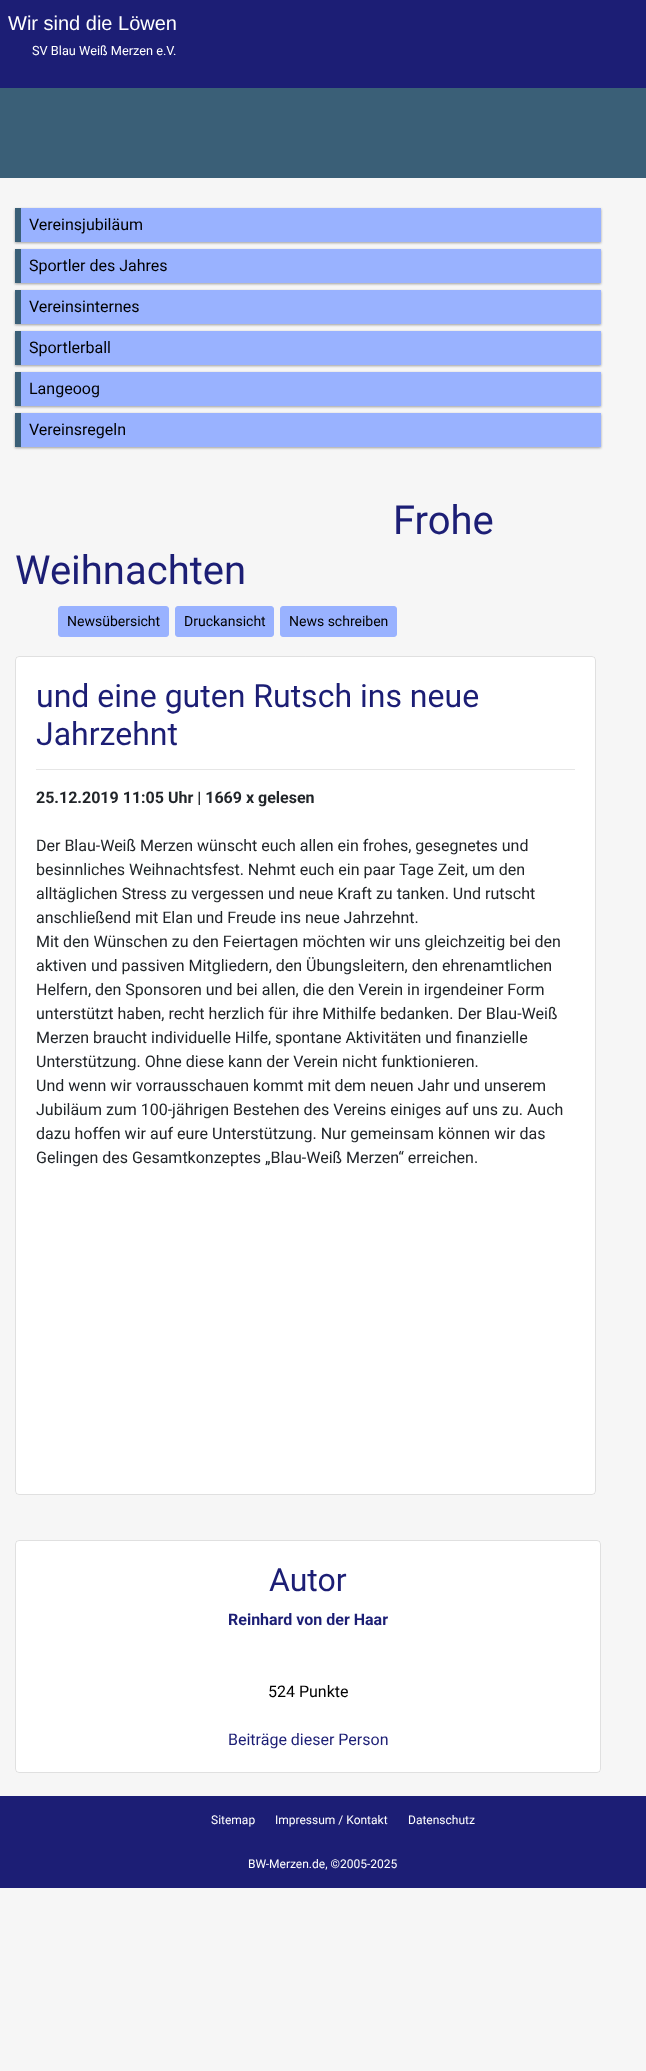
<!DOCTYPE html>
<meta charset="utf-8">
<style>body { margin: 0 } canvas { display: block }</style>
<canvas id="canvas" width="646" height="2071"></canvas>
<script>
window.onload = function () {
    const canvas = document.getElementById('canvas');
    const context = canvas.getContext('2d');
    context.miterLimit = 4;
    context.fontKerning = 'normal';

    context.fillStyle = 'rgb(246, 246, 246)';
    context.fillRect(0, 0, 646, 2071);
    context.fillStyle = 'rgb(28, 30, 117)';
    context.fillRect(0, 0, 646, 88);
    context.fillStyle = 'rgb(58, 95, 119)';
    context.fillRect(0, 88, 646, 90);
    context.fillStyle = 'rgba(0, 0, 0, 0.24)';
    context.filter = 'blur(1px)';
    context.beginPath();
    context.rect(15, 209, 586, 34);
    context.fill();
    context.filter = 'none';
    context.fillStyle = 'rgba(0, 0, 0, 0.12)';
    context.filter = 'blur(1.5px)';
    context.beginPath();
    context.rect(15, 209, 586, 34);
    context.fill();
    context.filter = 'none';
    context.fillStyle = 'rgb(153, 178, 255)';
    context.fillRect(21, 208, 580, 34);
    context.fillStyle = 'rgb(58, 95, 119)';
    context.fillRect(15, 208, 6, 34);
    context.fillStyle = 'rgba(0, 0, 0, 0.24)';
    context.filter = 'blur(1px)';
    context.beginPath();
    context.rect(15, 250, 586, 34);
    context.fill();
    context.filter = 'none';
    context.fillStyle = 'rgba(0, 0, 0, 0.12)';
    context.filter = 'blur(1.5px)';
    context.beginPath();
    context.rect(15, 250, 586, 34);
    context.fill();
    context.filter = 'none';
    context.fillStyle = 'rgb(153, 178, 255)';
    context.fillRect(21, 249, 580, 34);
    context.fillStyle = 'rgb(58, 95, 119)';
    context.fillRect(15, 249, 6, 34);
    context.fillStyle = 'rgba(0, 0, 0, 0.24)';
    context.filter = 'blur(1px)';
    context.beginPath();
    context.rect(15, 291, 586, 34);
    context.fill();
    context.filter = 'none';
    context.fillStyle = 'rgba(0, 0, 0, 0.12)';
    context.filter = 'blur(1.5px)';
    context.beginPath();
    context.rect(15, 291, 586, 34);
    context.fill();
    context.filter = 'none';
    context.fillStyle = 'rgb(153, 178, 255)';
    context.fillRect(21, 290, 580, 34);
    context.fillStyle = 'rgb(58, 95, 119)';
    context.fillRect(15, 290, 6, 34);
    context.fillStyle = 'rgba(0, 0, 0, 0.24)';
    context.filter = 'blur(1px)';
    context.beginPath();
    context.rect(15, 332, 586, 34);
    context.fill();
    context.filter = 'none';
    context.fillStyle = 'rgba(0, 0, 0, 0.12)';
    context.filter = 'blur(1.5px)';
    context.beginPath();
    context.rect(15, 332, 586, 34);
    context.fill();
    context.filter = 'none';
    context.fillStyle = 'rgb(153, 178, 255)';
    context.fillRect(21, 331, 580, 34);
    context.fillStyle = 'rgb(58, 95, 119)';
    context.fillRect(15, 331, 6, 34);
    context.fillStyle = 'rgba(0, 0, 0, 0.24)';
    context.filter = 'blur(1px)';
    context.beginPath();
    context.rect(15, 373, 586, 34);
    context.fill();
    context.filter = 'none';
    context.fillStyle = 'rgba(0, 0, 0, 0.12)';
    context.filter = 'blur(1.5px)';
    context.beginPath();
    context.rect(15, 373, 586, 34);
    context.fill();
    context.filter = 'none';
    context.fillStyle = 'rgb(153, 178, 255)';
    context.fillRect(21, 372, 580, 34);
    context.fillStyle = 'rgb(58, 95, 119)';
    context.fillRect(15, 372, 6, 34);
    context.fillStyle = 'rgba(0, 0, 0, 0.24)';
    context.filter = 'blur(1px)';
    context.beginPath();
    context.rect(15, 414, 586, 34);
    context.fill();
    context.filter = 'none';
    context.fillStyle = 'rgba(0, 0, 0, 0.12)';
    context.filter = 'blur(1.5px)';
    context.beginPath();
    context.rect(15, 414, 586, 34);
    context.fill();
    context.filter = 'none';
    context.fillStyle = 'rgb(153, 178, 255)';
    context.fillRect(21, 413, 580, 34);
    context.fillStyle = 'rgb(58, 95, 119)';
    context.fillRect(15, 413, 6, 34);
    context.fillStyle = 'rgb(153, 178, 255)';
    context.beginPath();
    context.roundRect(58.5, 606.5, 110, 30, 2.5);
    context.fill();
    context.strokeStyle = 'rgb(153, 178, 255)';
    context.stroke();
    context.beginPath();
    context.roundRect(175.5, 606.5, 98, 30, 2.5);
    context.fill();
    context.stroke();
    context.beginPath();
    context.roundRect(280.5, 606.5, 116, 30, 2.5);
    context.fill();
    context.stroke();
    context.fillStyle = 'rgb(255, 255, 255)';
    context.beginPath();
    context.roundRect(15, 656, 581, 839, 4);
    context.fill();
    context.beginPath();
    context.roundRect(15.5, 656.5, 580, 838, 3.5);
    context.strokeStyle = 'rgba(0, 0, 0, 0.12)';
    context.stroke();
    context.fillStyle = 'rgb(230, 230, 230)';
    context.fillRect(36, 769, 539, 1);
    context.fillStyle = 'rgb(255, 255, 255)';
    context.beginPath();
    context.roundRect(15, 1540, 586, 233, 4);
    context.fill();
    context.beginPath();
    context.roundRect(15.5, 1540.5, 585, 232, 3.5);
    context.stroke();
    context.fillStyle = 'rgb(28, 30, 117)';
    context.fillRect(0, 1796, 646, 92);
    context.font = '20px Liberation Sans';
    context.fillStyle = 'rgb(255, 255, 255)';
    context.fillText('Wir sind die Löwen', 8, 30);
    context.font = '12.75px Roboto';
    context.fillText('SV Blau Weiß Merzen e.V.', 32, 55);
    context.font = '16px Roboto';
    context.fillStyle = 'rgb(0, 0, 0)';
    context.fillText('Vereinsjubiläum', 29, 230);
    context.fillText('Sportler des Jahres', 29, 271);
    context.fillText('Vereinsinternes', 29, 312);
    context.fillText('Sportlerball', 29, 353);
    context.fillText('Langeoog', 29, 394);
    context.fillText('Vereinsregeln', 29, 435);
    context.font = '40px Roboto';
    context.fillStyle = 'rgb(28, 30, 117)';
    context.fillText('Frohe', 393, 534);
    context.fillText('Weihnachten', 15, 584);
    context.font = '14px Roboto';
    context.fillStyle = 'rgb(0, 0, 0)';
    context.fillText('Newsübersicht', 67, 626);
    context.fillText('Druckansicht', 184, 626);
    context.fillText('News schreiben', 289, 626);
    context.font = '32px Roboto';
    context.fillStyle = 'rgb(28, 30, 117)';
    context.fillText('und eine guten Rutsch ins neue', 36, 707);
    context.fillText('Jahrzehnt', 36, 745);
    context.font = 'bold 16px Roboto';
    context.fillStyle = 'rgb(33, 37, 41)';
    context.fillText('25.12.2019 11:05 Uhr | 1669 x gelesen', 36, 803);
    context.font = '16px Roboto';
    context.fillText('Der Blau-Weiß Merzen wünscht euch allen ein frohes, gesegnetes und', 36, 851);
    context.fillText('besinnliches Weihnachtsfest. Nehmt euch ein paar Tage Zeit, um den', 36, 875);
    context.fillText('alltäglichen Stress zu vergessen und neue Kraft zu tanken. Und rutscht', 36, 899);
    context.fillText('anschließend mit Elan und Freude ins neue Jahrzehnt.', 36, 923);
    context.fillText('Mit den Wünschen zu den Feiertagen möchten wir uns gleichzeitig bei den', 36, 947);
    context.fillText('aktiven und passiven Mitgliedern, den Übungsleitern, den ehrenamtlichen', 36, 971);
    context.fillText('Helfern, den Sponsoren und bei allen, die den Verein in irgendeiner Form', 36, 995);
    context.fillText('unterstützt haben, recht herzlich für ihre Mithilfe bedanken. Der Blau-Weiß', 36, 1019);
    context.fillText('Merzen braucht individuelle Hilfe, spontane Aktivitäten und finanzielle', 36, 1043);
    context.fillText('Unterstützung. Ohne diese kann der Verein nicht funktionieren.', 36, 1067);
    context.fillText('Und wenn wir vorrausschauen kommt mit dem neuen Jahr und unserem', 36, 1091);
    context.fillText('Jubiläum zum 100-jährigen Bestehen des Vereins einiges auf uns zu. Auch', 36, 1115);
    context.fillText('dazu hoffen wir auf eure Unterstützung. Nur gemeinsam können wir das', 36, 1139);
    context.fillText('Gelingen des Gesamtkonzeptes „Blau-Weiß Merzen“ erreichen.', 36, 1163);
    context.font = '32px Roboto';
    context.fillStyle = 'rgb(28, 30, 117)';
    context.fillText('Autor', 269, 1591);
    context.font = 'bold 16px Roboto';
    context.fillText('Reinhard von der Haar', 228, 1625);
    context.font = '16px Roboto';
    context.fillStyle = 'rgb(0, 0, 0)';
    context.fillText('524 Punkte', 268, 1697);
    context.fillStyle = 'rgb(28, 30, 117)';
    context.fillText('Beiträge dieser Person', 228, 1745);
    context.font = '12px Roboto';
    context.fillStyle = 'rgb(255, 255, 255)';
    context.fillText('Sitemap', 211, 1824);
    context.fillText('Impressum / Kontakt', 275, 1824);
    context.fillText('Datenschutz', 408, 1824);
    context.fillText('BW-Merzen.de, ©2005-2025', 248, 1868);
};
</script>
